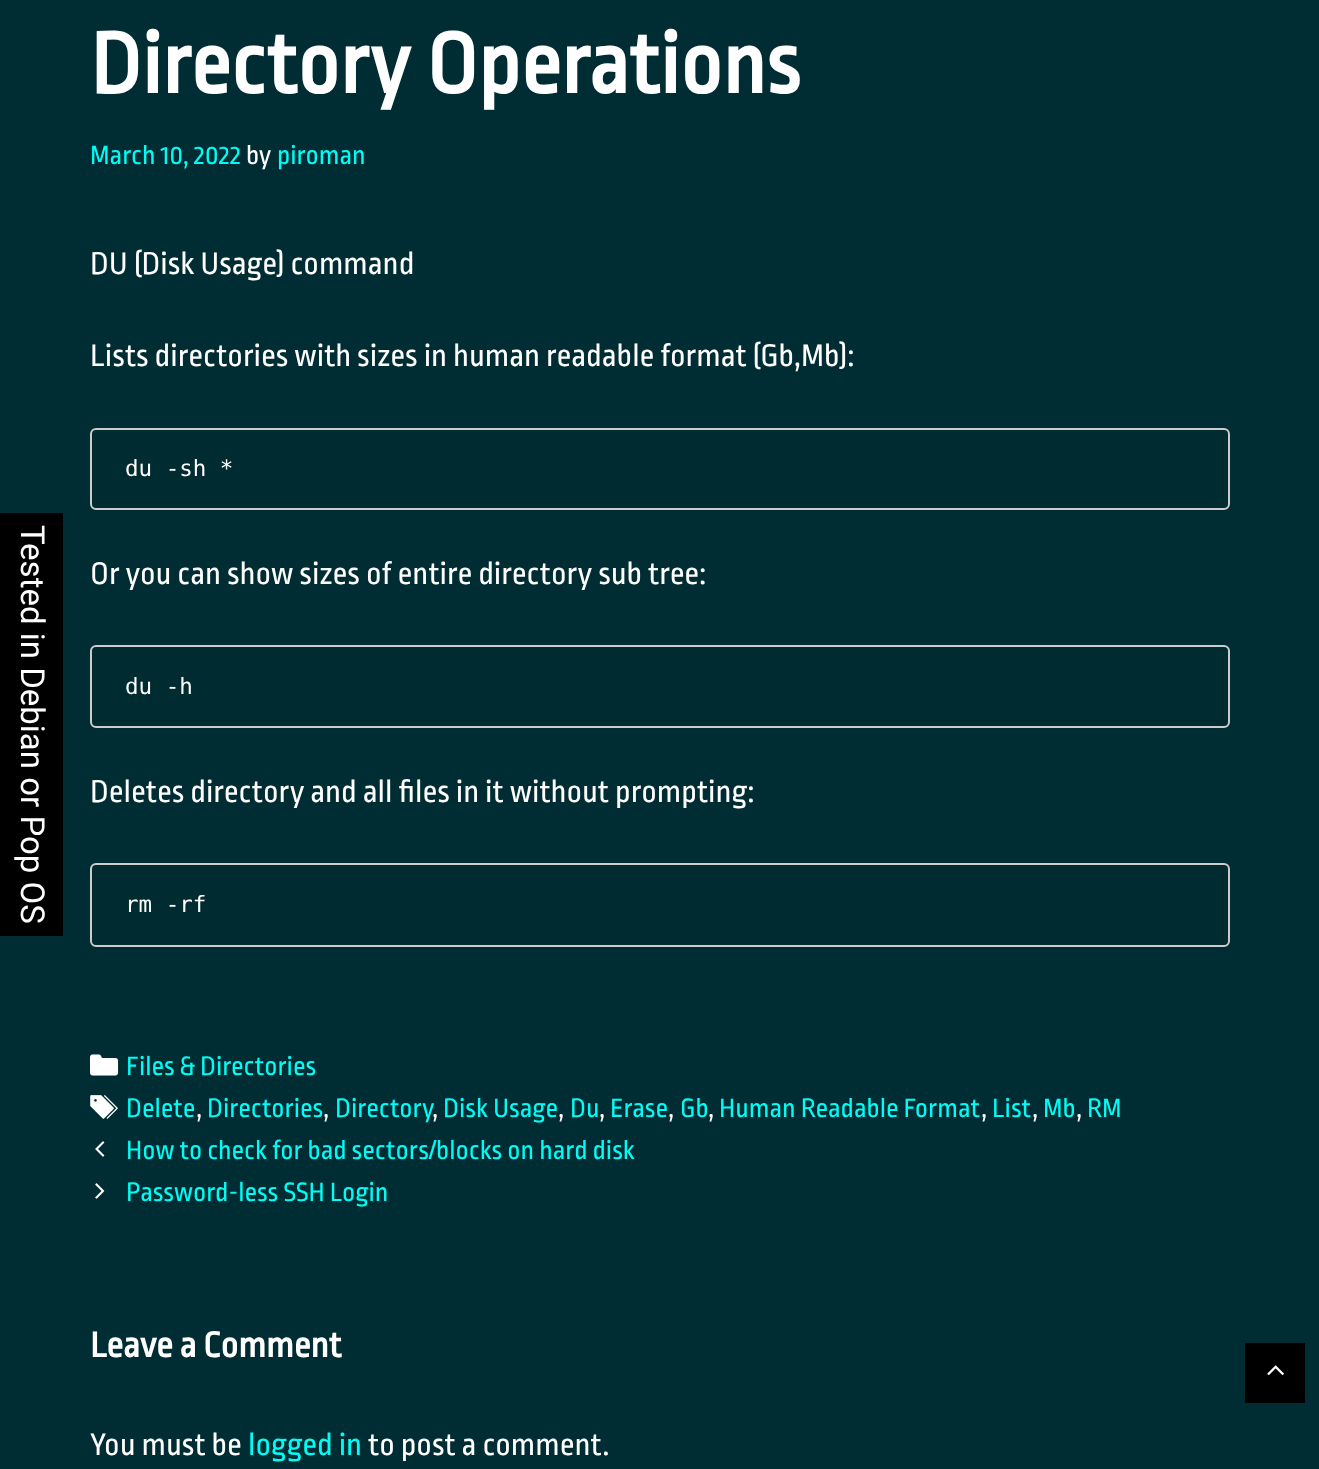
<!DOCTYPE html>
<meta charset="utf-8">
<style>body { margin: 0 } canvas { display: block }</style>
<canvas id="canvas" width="1319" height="1469"></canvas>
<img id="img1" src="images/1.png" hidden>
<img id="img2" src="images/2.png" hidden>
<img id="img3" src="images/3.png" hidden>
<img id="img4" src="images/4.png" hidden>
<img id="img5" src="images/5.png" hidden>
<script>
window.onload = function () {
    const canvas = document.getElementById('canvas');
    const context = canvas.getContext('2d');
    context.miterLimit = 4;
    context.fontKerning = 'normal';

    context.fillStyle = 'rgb(0, 45, 51)';
    context.fillRect(0, 0, 1319, 1469);
    context.fillStyle = 'rgb(0, 0, 0)';
    context.fillRect(0, 513, 63, 423);
    context.fillStyle = 'rgb(0, 43, 48)';
    context.beginPath();
    context.roundRect(91, 429, 1138, 80, 5);
    context.fill();
    context.strokeStyle = 'rgb(204, 204, 204)';
    context.lineWidth = 2;
    context.stroke();
    context.beginPath();
    context.roundRect(91, 646, 1138, 81, 5);
    context.fill();
    context.stroke();
    context.beginPath();
    context.roundRect(91, 864, 1138, 82, 5);
    context.fill();
    context.stroke();
    context.drawImage(document.getElementById('img1'), 90, 1054, 29, 22);
    context.drawImage(document.getElementById('img2'), 90, 1095, 28, 24);
    context.drawImage(document.getElementById('img3'), 95, 1141, 10, 16);
    context.drawImage(document.getElementById('img4'), 95, 1183, 10, 16);
    context.fillStyle = 'rgb(0, 0, 0)';
    context.fillRect(1245, 1343, 60, 60);
    context.drawImage(document.getElementById('img5'), 1267, 1365, 17, 11);
    context.font = '33px Roboto';
    context.fillStyle = 'rgb(255, 255, 255)';
    context.save();
    context.translate(21, 525);
    context.rotate(90 * Math.PI / 180);
    context.fillText('Tested in Debian or Pop OS', 0, 0);
    context.restore();
    context.font = 'bold 90px Ropa Sans';
    context.fillText('Directory Operations', 90, 93);
    context.font = '28px Ropa Sans';
    context.fillStyle = 'rgb(0, 252, 244)';
    context.fillText('March 10, 2022', 90, 164);
    context.fillStyle = 'rgb(255, 255, 255)';
    context.fillText('by', 246, 164);
    context.fillStyle = 'rgb(0, 252, 244)';
    context.fillText('piroman', 277, 164);
    context.font = '33px Ropa Sans';
    context.fillStyle = 'rgb(255, 255, 255)';
    context.fillText('DU (Disk Usage) command', 90, 274);
    context.fillText('Lists directories with sizes in human readable format (Gb,Mb):', 90, 366);
    context.font = '22.5px DejaVu Sans Mono';
    context.fillText('du -sh *', 125, 476);
    context.font = '33px Ropa Sans';
    context.fillText('Or you can show sizes of entire directory sub tree:', 90, 584);
    context.font = '22.5px DejaVu Sans Mono';
    context.fillText('du -h', 125, 694);
    context.font = '33px Ropa Sans';
    context.fillText('Deletes directory and all files in it without prompting:', 90, 802);
    context.font = '22.5px DejaVu Sans Mono';
    context.fillText('rm -rf', 125, 912);
    context.font = '28px Ropa Sans';
    context.fillStyle = 'rgb(0, 252, 244)';
    context.fillText('Files & Directories', 126, 1075);
    context.fillText('Delete', 126, 1117);
    context.fillStyle = 'rgb(255, 255, 255)';
    context.fillText(',', 196, 1117);
    context.fillStyle = 'rgb(0, 252, 244)';
    context.fillText('Directories', 207, 1117);
    context.fillStyle = 'rgb(255, 255, 255)';
    context.fillText(',', 323, 1117);
    context.fillStyle = 'rgb(0, 252, 244)';
    context.fillText('Directory', 335, 1117);
    context.fillStyle = 'rgb(255, 255, 255)';
    context.fillText(',', 432, 1117);
    context.fillStyle = 'rgb(0, 252, 244)';
    context.fillText('Disk Usage', 443, 1117);
    context.fillStyle = 'rgb(255, 255, 255)';
    context.fillText(',', 558, 1117);
    context.fillStyle = 'rgb(0, 252, 244)';
    context.fillText('Du', 570, 1117);
    context.fillStyle = 'rgb(255, 255, 255)';
    context.fillText(',', 599, 1117);
    context.fillStyle = 'rgb(0, 252, 244)';
    context.fillText('Erase', 610, 1117);
    context.fillStyle = 'rgb(255, 255, 255)';
    context.fillText(',', 668, 1117);
    context.fillStyle = 'rgb(0, 252, 244)';
    context.fillText('Gb', 680, 1117);
    context.fillStyle = 'rgb(255, 255, 255)';
    context.fillText(',', 708, 1117);
    context.fillStyle = 'rgb(0, 252, 244)';
    context.fillText('Human Readable Format', 719, 1117);
    context.fillStyle = 'rgb(255, 255, 255)';
    context.fillText(',', 981, 1117);
    context.fillStyle = 'rgb(0, 252, 244)';
    context.fillText('List', 992, 1117);
    context.fillStyle = 'rgb(255, 255, 255)';
    context.fillText(',', 1032, 1117);
    context.fillStyle = 'rgb(0, 252, 244)';
    context.fillText('Mb', 1043, 1117);
    context.fillStyle = 'rgb(255, 255, 255)';
    context.fillText(',', 1076, 1117);
    context.fillStyle = 'rgb(0, 252, 244)';
    context.fillText('RM', 1087, 1117);
    context.fillText('How to check for bad sectors/blocks on hard disk', 126, 1159);
    context.fillText('Password-less SSH Login', 126, 1201);
    context.font = 'bold 37.5px Ropa Sans';
    context.fillStyle = 'rgb(255, 255, 255)';
    context.fillText('Leave a Comment', 90, 1357);
    context.font = '33px Ropa Sans';
    context.fillText('You must be', 90, 1455);
    context.fillStyle = 'rgb(0, 252, 244)';
    context.fillText('logged in', 248, 1455);
    context.fillStyle = 'rgb(255, 255, 255)';
    context.fillText('to post a comment.', 368, 1455);
};
</script>
